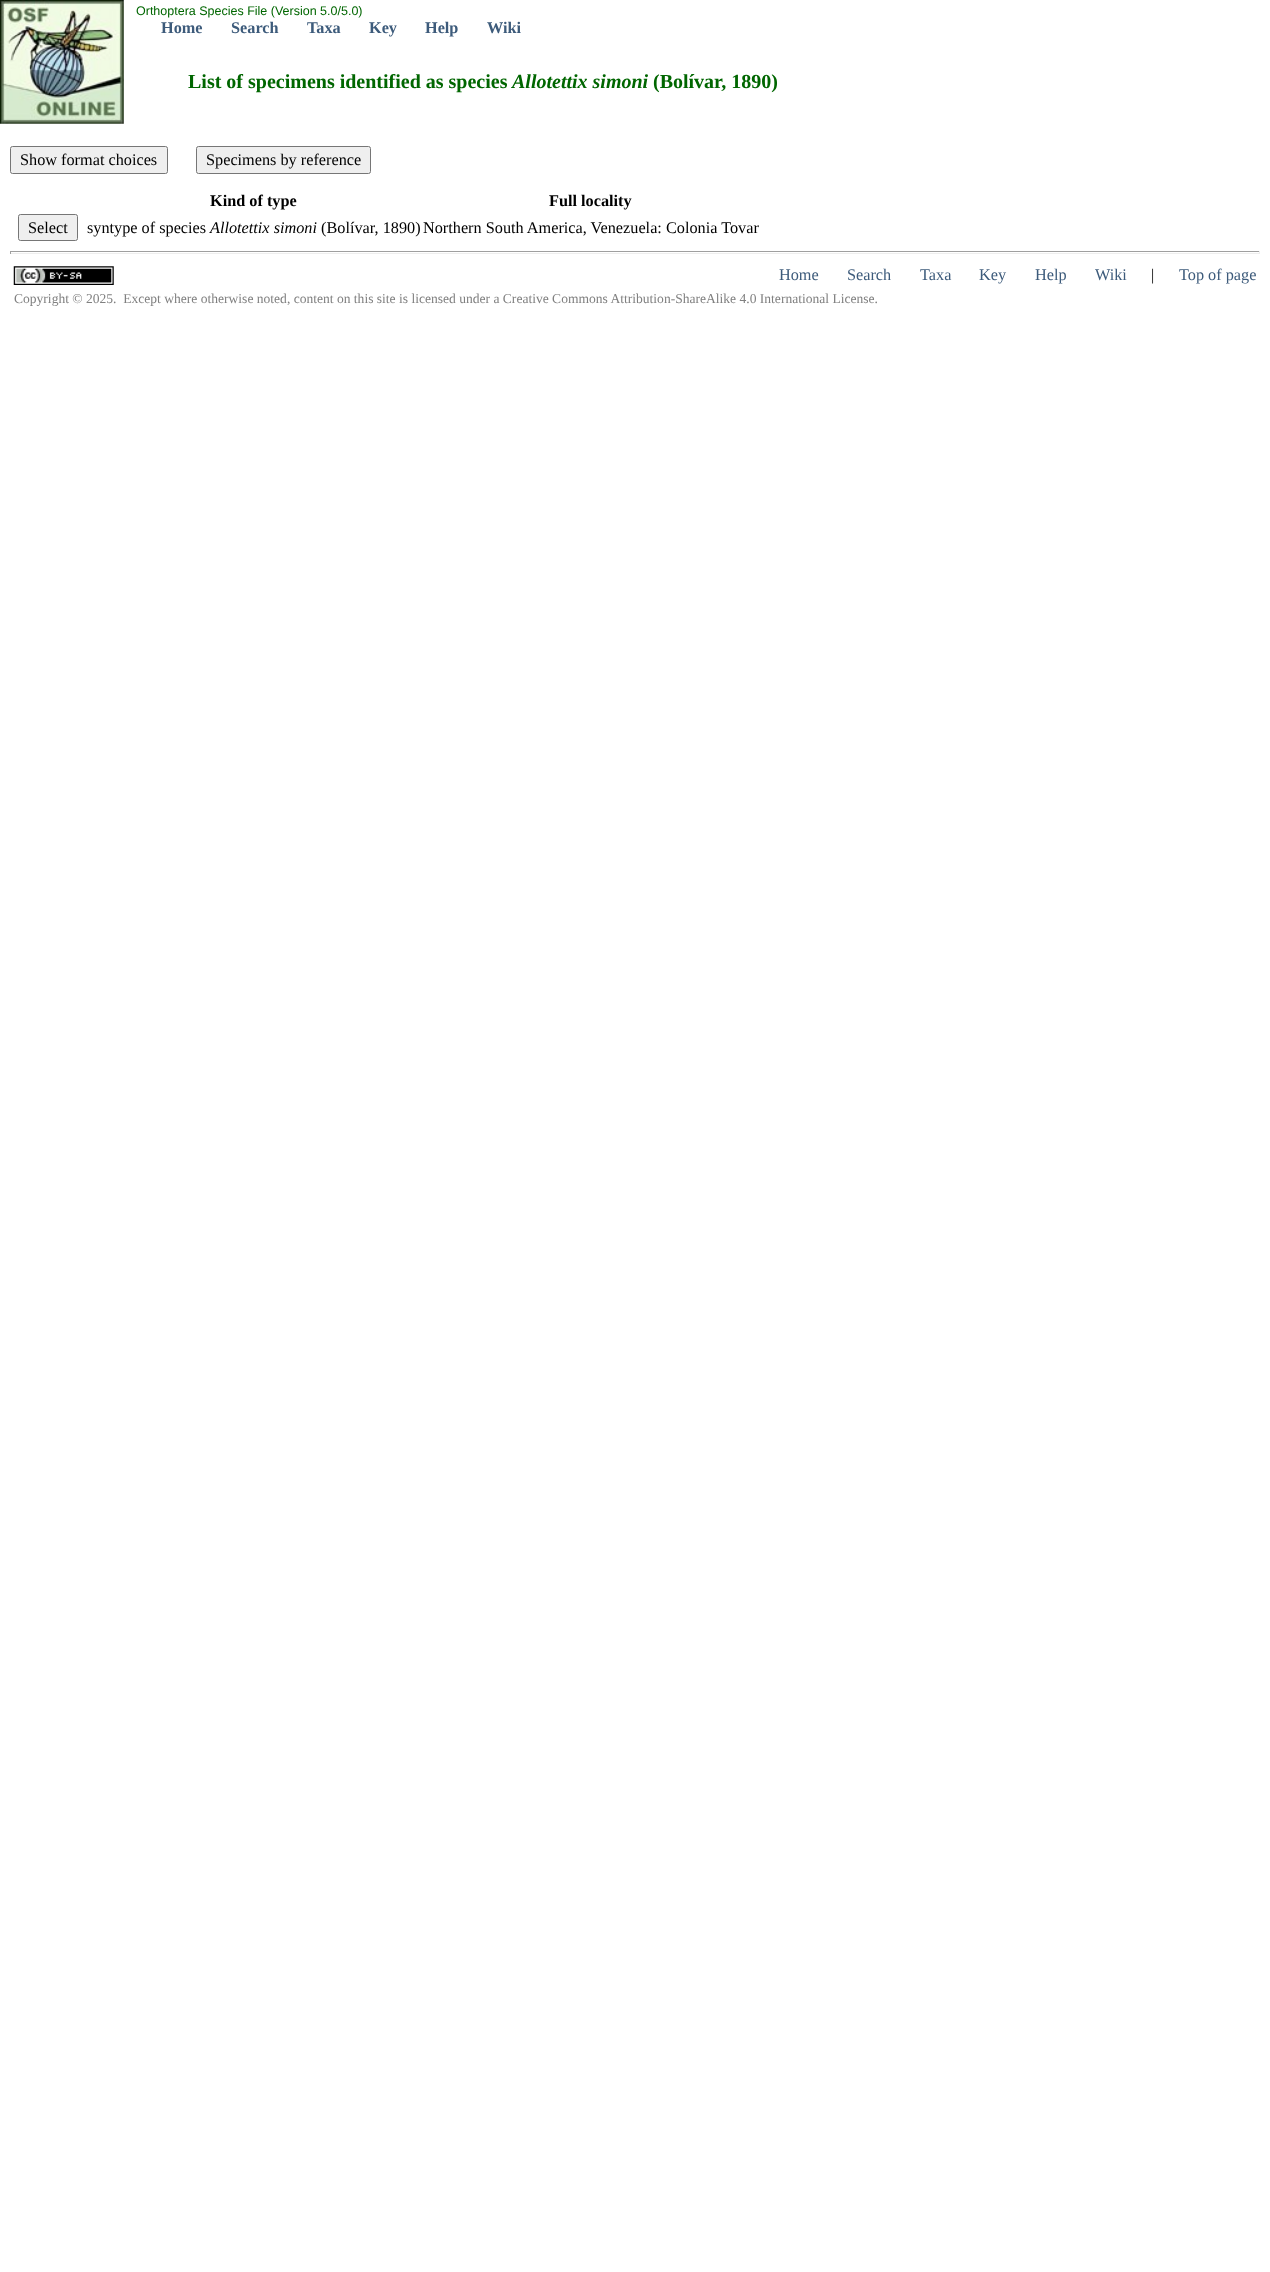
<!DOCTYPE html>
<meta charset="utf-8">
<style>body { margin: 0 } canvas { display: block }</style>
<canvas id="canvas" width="1270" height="2272"></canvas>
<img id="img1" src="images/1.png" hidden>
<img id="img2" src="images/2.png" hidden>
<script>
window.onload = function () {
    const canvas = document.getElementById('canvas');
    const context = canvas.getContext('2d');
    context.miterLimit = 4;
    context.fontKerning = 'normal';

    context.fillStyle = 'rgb(255, 255, 255)';
    context.fillRect(0, 0, 1270, 2272);
    context.drawImage(document.getElementById('img1'), 0, 0, 124, 124);
    context.fillStyle = 'rgb(239, 239, 239)';
    context.beginPath();
    context.roundRect(10.5, 146.5, 157, 27, 2);
    context.fill();
    context.strokeStyle = 'rgb(118, 118, 118)';
    context.stroke();
    context.beginPath();
    context.roundRect(196.5, 146.5, 174, 27, 2);
    context.fill();
    context.stroke();
    context.beginPath();
    context.roundRect(18.5, 214.5, 59, 26, 2);
    context.fill();
    context.stroke();
    context.fillStyle = 'rgb(159, 159, 159)';
    context.fillRect(10, 251, 1250, 1);
    context.fillStyle = 'rgb(238, 238, 238)';
    context.fillRect(1259, 251, 1, 3);
    context.fillRect(10, 253, 1250, 1);
    context.fillStyle = 'rgb(159, 159, 159)';
    context.fillRect(10, 251, 1, 3);
    context.drawImage(document.getElementById('img2'), 13, 266, 101, 19);
    context.font = '12.5px Liberation Sans';
    context.fillStyle = 'rgb(0, 102, 0)';
    context.fillText('Orthoptera Species File (Version 5.0/5.0)', 136, 15);
    context.font = 'bold 16.25px Liberation Serif';
    context.fillStyle = 'rgb(61, 91, 123)';
    context.fillText('Home', 161, 33);
    context.fillText('Search', 231, 33);
    context.fillText('Taxa', 307, 33);
    context.fillText('Key', 369, 33);
    context.fillText('Help', 425, 33);
    context.fillText('Wiki', 487, 33);
    context.font = 'bold 20px Liberation Serif';
    context.fillStyle = 'rgb(0, 102, 0)';
    context.fillText('List of specimens identified as species', 188, 88);
    context.font = 'italic bold 20px Liberation Serif';
    context.fillText('Allotettix simoni', 512, 88);
    context.font = 'bold 20px Liberation Serif';
    context.fillText('(Bolívar, 1890)', 653, 88);
    context.font = '16.25px Liberation Serif';
    context.fillStyle = 'rgb(0, 0, 0)';
    context.fillText('Show format choices', 20, 165);
    context.fillText('Specimens by reference', 206, 165);
    context.font = 'bold 16.25px Liberation Serif';
    context.fillText('Kind of type', 210, 206);
    context.fillText('Full locality', 549, 206);
    context.font = '16.25px Liberation Serif';
    context.fillText('Select', 28, 233);
    context.fillText('syntype of species', 87, 233);
    context.font = 'italic 16.25px Liberation Serif';
    context.fillText('Allotettix simoni', 210, 233);
    context.font = '16.25px Liberation Serif';
    context.fillText('(Bolívar, 1890)', 321, 233);
    context.fillText('Northern South America, Venezuela: Colonia Tovar', 423, 233);
    context.fillStyle = 'rgb(61, 91, 123)';
    context.fillText('Home', 779, 280);
    context.fillText('Search', 847, 280);
    context.fillText('Taxa', 920, 280);
    context.fillText('Key', 979, 280);
    context.fillText('Help', 1035, 280);
    context.fillText('Wiki', 1095, 280);
    context.fillStyle = 'rgb(0, 0, 0)';
    context.fillText('|', 1151, 280);
    context.fillStyle = 'rgb(61, 91, 123)';
    context.fillText('Top of page', 1179, 280);
    context.font = '13.55px Liberation Serif';
    context.fillStyle = 'rgb(128, 128, 128)';
    context.fillText('Copyright © 2025.  Except where otherwise noted, content on this site is licensed under a Creative Commons Attribution-ShareAlike 4.0 International License.', 14, 303);
};
</script>
